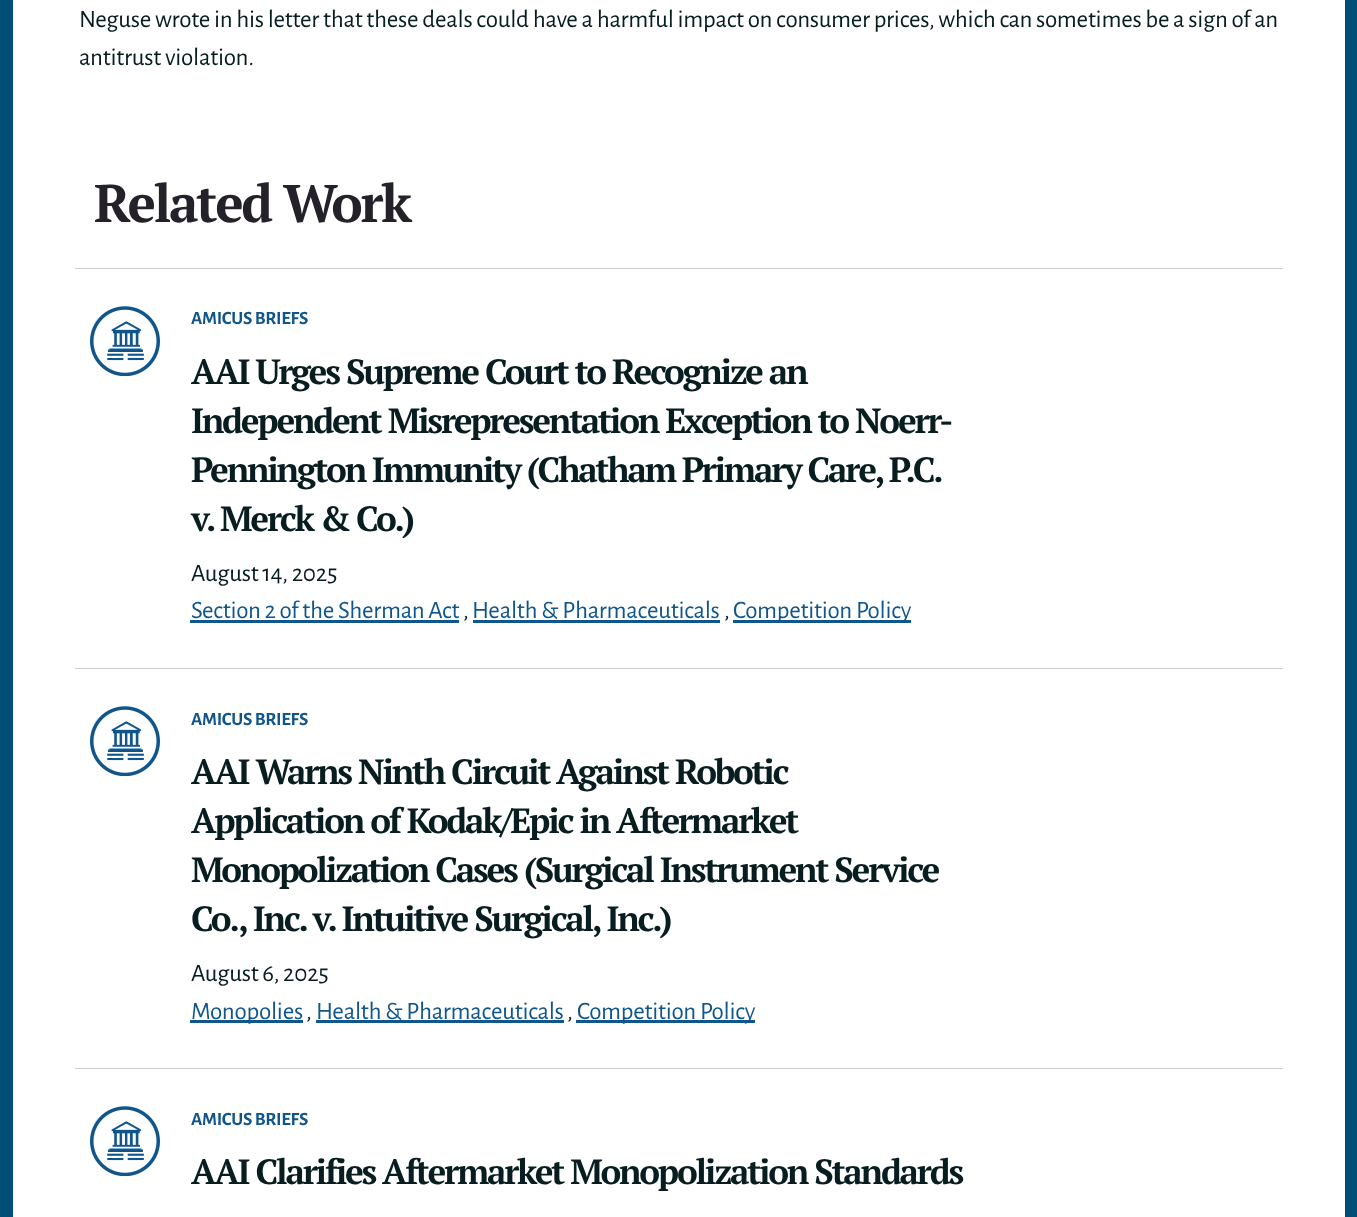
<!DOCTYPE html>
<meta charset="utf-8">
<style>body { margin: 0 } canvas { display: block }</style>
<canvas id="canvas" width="1357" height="1217"></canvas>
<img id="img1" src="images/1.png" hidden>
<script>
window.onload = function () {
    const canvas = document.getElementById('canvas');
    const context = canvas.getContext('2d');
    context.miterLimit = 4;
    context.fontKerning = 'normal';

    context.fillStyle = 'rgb(0, 78, 118)';
    context.fillRect(0, 0, 1357, 1217);
    context.fillStyle = 'rgb(255, 255, 255)';
    context.fillRect(13, 0, 1332, 1217);
    context.fillStyle = 'rgb(204, 204, 204)';
    context.fillRect(75, 268, 1208, 1);
    context.drawImage(document.getElementById('img1'), 90, 306, 70, 70);
    context.fillStyle = 'rgb(16, 86, 140)';
    context.fillRect(190, 620, 269, 3);
    context.fillRect(473, 620, 247, 3);
    context.fillRect(733, 620, 178, 3);
    context.fillStyle = 'rgb(204, 204, 204)';
    context.fillRect(75, 668, 1208, 1);
    context.drawImage(document.getElementById('img1'), 90, 706, 70, 70);
    context.fillStyle = 'rgb(16, 86, 140)';
    context.fillRect(190, 1020, 113, 3);
    context.fillRect(316, 1020, 248, 3);
    context.fillRect(576, 1020, 179, 3);
    context.fillStyle = 'rgb(204, 204, 204)';
    context.fillRect(75, 1068, 1208, 1);
    context.drawImage(document.getElementById('img1'), 90, 1106, 70, 70);
    context.letterSpacing = '-0.25px';
    context.font = '25px Alegreya Sans';
    context.fillStyle = 'rgb(8, 29, 32)';
    context.fillText('Neguse wrote in his letter that these deals could have a harmful impact on consumer prices, which can sometimes be a sign of an', 79, 27);
    context.fillText('antitrust violation.', 79, 65);
    context.letterSpacing = '-2.25px';
    context.font = 'bold 53px PT Serif';
    context.fillStyle = 'rgb(37, 33, 42)';
    context.fillText('Related Work', 94, 222);
    context.letterSpacing = '-0.25px';
    context.font = 'bold 18.75px Alegreya Sans';
    context.fillStyle = 'rgb(16, 86, 140)';
    context.fillText('AMICUS BRIEFS', 191, 324);
    context.letterSpacing = '-2.25px';
    context.font = 'bold 35px PT Serif';
    context.fillStyle = 'rgb(8, 29, 32)';
    context.fillText('AAI Urges Supreme Court to Recognize an', 191, 384);
    context.fillText('Independent Misrepresentation Exception to Noerr-', 191, 433);
    context.wordSpacing = '-0.25px';
    context.fillText('Pennington Immunity (Chatham Primary Care, P.C.', 191, 482);
    context.wordSpacing = '0px';
    context.fillText('v. Merck & Co.)', 191, 531);
    context.letterSpacing = '-0.25px';
    context.font = '25px Alegreya Sans';
    context.fillText('August 14, 2025', 191, 581);
    context.fillStyle = 'rgb(16, 86, 140)';
    context.fillText('Section 2 of the Sherman Act', 191, 618);
    context.fillStyle = 'rgb(8, 29, 32)';
    context.fillText(',', 463, 618);
    context.fillStyle = 'rgb(16, 86, 140)';
    context.fillText('Health & Pharmaceuticals', 472, 618);
    context.fillStyle = 'rgb(8, 29, 32)';
    context.fillText(',', 724, 618);
    context.fillStyle = 'rgb(16, 86, 140)';
    context.fillText('Competition Policy', 733, 618);
    context.font = 'bold 18.75px Alegreya Sans';
    context.fillText('AMICUS BRIEFS', 191, 725);
    context.letterSpacing = '-2.25px';
    context.font = 'bold 35px PT Serif';
    context.fillStyle = 'rgb(8, 29, 32)';
    context.fillText('AAI Warns Ninth Circuit Against Robotic', 191, 784);
    context.fillText('Application of Kodak/Epic in Aftermarket', 191, 833);
    context.fillText('Monopolization Cases (Surgical Instrument Service', 191, 882);
    context.fillText('Co., Inc. v. Intuitive Surgical, Inc.)', 191, 931);
    context.letterSpacing = '-0.25px';
    context.font = '25px Alegreya Sans';
    context.fillText('August 6, 2025', 191, 981);
    context.fillStyle = 'rgb(16, 86, 140)';
    context.fillText('Monopolies', 191, 1019);
    context.fillStyle = 'rgb(8, 29, 32)';
    context.fillText(',', 306, 1019);
    context.fillStyle = 'rgb(16, 86, 140)';
    context.fillText('Health & Pharmaceuticals', 316, 1019);
    context.fillStyle = 'rgb(8, 29, 32)';
    context.fillText(',', 567, 1019);
    context.fillStyle = 'rgb(16, 86, 140)';
    context.fillText('Competition Policy', 577, 1019);
    context.font = 'bold 18.75px Alegreya Sans';
    context.fillText('AMICUS BRIEFS', 191, 1125);
    context.letterSpacing = '-2.25px';
    context.font = 'bold 35px PT Serif';
    context.fillStyle = 'rgb(8, 29, 32)';
    context.fillText('AAI Clarifies Aftermarket Monopolization Standards', 191, 1184);
};
</script>
